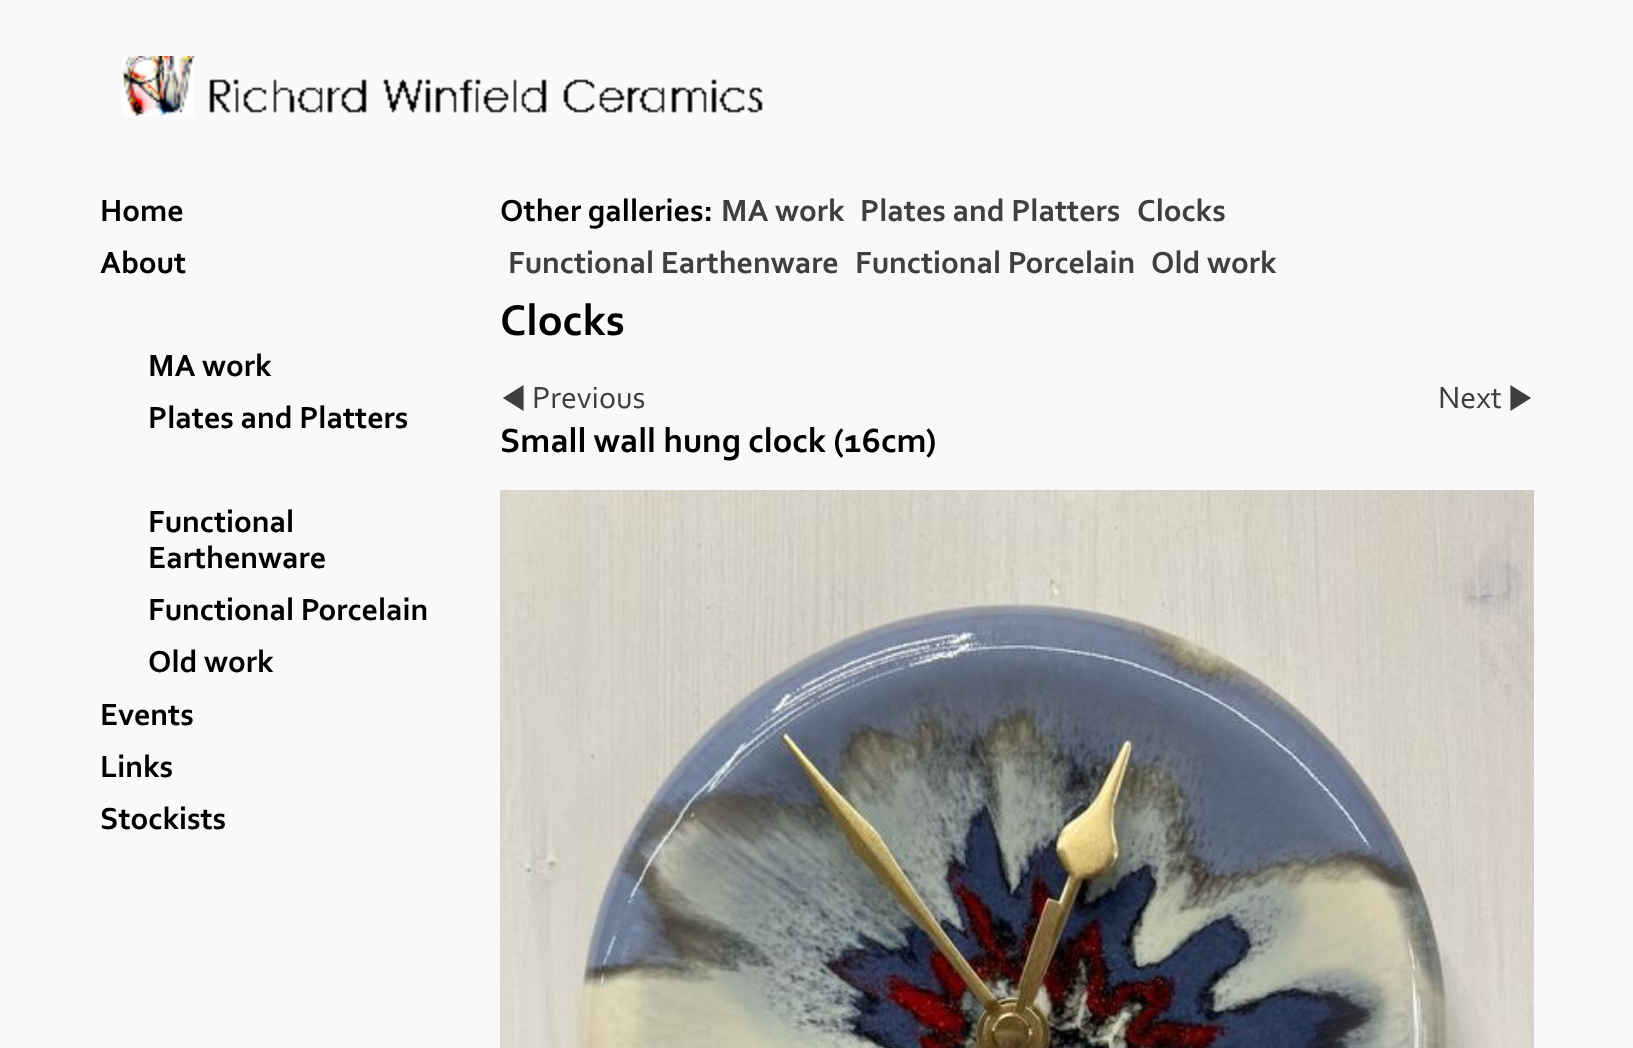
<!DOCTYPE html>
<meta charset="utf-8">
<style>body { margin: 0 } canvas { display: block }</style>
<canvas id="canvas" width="1633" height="1048"></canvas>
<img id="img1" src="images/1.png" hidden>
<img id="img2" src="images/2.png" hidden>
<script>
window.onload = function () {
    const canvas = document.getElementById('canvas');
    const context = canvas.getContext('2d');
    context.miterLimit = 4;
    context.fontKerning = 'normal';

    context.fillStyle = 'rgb(249, 249, 252)';
    context.fillRect(0, 0, 1633, 1048);
    context.drawImage(document.getElementById('img1'), 121, 56, 642, 60);
    context.fillStyle = 'rgb(63, 63, 64)';
    context.beginPath();
    context.moveTo(523, 386);
    context.lineTo(523, 410);
    context.lineTo(504, 398);
    context.closePath();
    context.fill();
    context.strokeStyle = 'rgb(63, 63, 64)';
    context.lineWidth = 1.2;
    context.stroke();
    context.beginPath();
    context.moveTo(1511, 386);
    context.lineTo(1511, 410);
    context.lineTo(1530, 398);
    context.closePath();
    context.fill();
    context.stroke();
    context.drawImage(document.getElementById('img2'), 500, 490, 1034, 558);
    context.font = 'bold 32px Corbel';
    context.fillStyle = 'rgb(0, 0, 0)';
    context.fillText('Home', 100, 221);
    context.fillText('About', 100, 273);
    context.fillText('Events', 100, 725);
    context.fillText('Links', 100, 777);
    context.fillText('Stockists', 100, 829);
    context.fillText('Other galleries:', 500, 221);
    context.fillStyle = 'rgb(63, 63, 64)';
    context.fillText('MA work', 721, 221);
    context.fillText('Plates and Platters', 860, 221);
    context.fillText('Clocks', 1137, 221);
    context.fillText('Functional Earthenware', 508, 273);
    context.fillText('Functional Porcelain', 855, 273);
    context.fillText('Old work', 1151, 273);
    context.font = 'bold 45px Corbel';
    context.fillStyle = 'rgb(0, 0, 0)';
    context.fillText('Clocks', 500, 335);
    context.font = '32px Corbel';
    context.fillStyle = 'rgb(63, 63, 64)';
    context.fillText('Previous', 532, 408);
    context.fillText('Next', 1438, 408);
    context.font = 'bold 35.25px Corbel';
    context.fillStyle = 'rgb(0, 0, 0)';
    context.fillText('Small wall hung clock (16cm)', 500, 452);
    context.font = 'bold 32px Corbel';
    context.fillText('MA work', 148, 376);
    context.fillText('Plates and Platters', 148, 428);
    context.fillText('Functional', 148, 532);
    context.fillText('Earthenware', 148, 568);
    context.fillText('Functional Porcelain', 148, 620);
    context.fillText('Old work', 148, 672);
};
</script>
